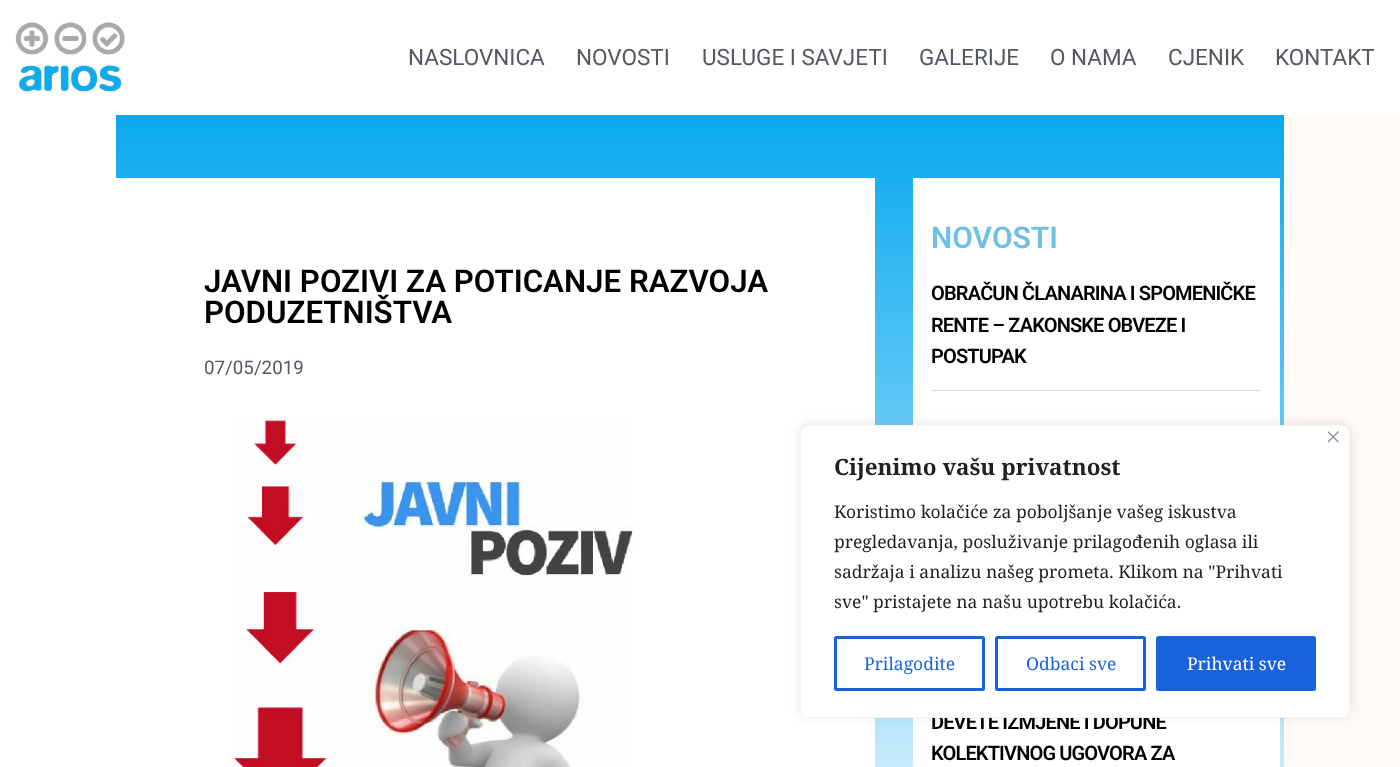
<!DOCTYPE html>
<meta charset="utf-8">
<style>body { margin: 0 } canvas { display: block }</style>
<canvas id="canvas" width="1400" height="767"></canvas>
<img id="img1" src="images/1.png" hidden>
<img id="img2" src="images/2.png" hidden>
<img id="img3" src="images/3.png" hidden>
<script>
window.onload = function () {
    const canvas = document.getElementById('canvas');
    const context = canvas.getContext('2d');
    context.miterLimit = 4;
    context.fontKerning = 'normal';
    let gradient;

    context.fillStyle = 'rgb(255, 250, 245)';
    context.fillRect(0, 0, 1400, 767);
    context.fillStyle = 'rgb(255, 255, 255)';
    context.fillRect(0, 0, 1400, 115);
    context.drawImage(document.getElementById('img1'), 15, 20, 110, 75);
    context.fillRect(0, 115, 116, 652);
    gradient = context.createLinearGradient(700, 115, 700, 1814);
    gradient.addColorStop(0, 'rgb(9, 169, 239)');
    gradient.addColorStop(0.5, 'rgb(255, 255, 255)');
    context.fillStyle = gradient;
    context.fillRect(116, 115, 1168, 652);
    context.fillStyle = 'rgb(255, 255, 255)';
    context.fillRect(116, 178, 759, 589);
    context.drawImage(document.getElementById('img2'), 233, 416, 400, 351);
    context.fillRect(913, 178, 367, 589);
    context.fillStyle = 'rgb(221, 221, 221)';
    context.fillRect(931, 390, 330, 1);
    context.fillStyle = 'rgba(172, 171, 171, 0.3)';
    context.filter = 'blur(6px)';
    context.beginPath();
    context.roundRect(800, 424, 550, 292, 8);
    context.fill();
    context.filter = 'none';
    context.font = '22.5px Roboto';
    context.fillStyle = 'rgb(84, 89, 95)';
    context.fillText('NASLOVNICA', 408, 65);
    context.fillText('NOVOSTI', 576, 65);
    context.fillText('USLUGE I SAVJETI', 702, 65);
    context.fillText('GALERIJE', 919, 65);
    context.fillText('O NAMA', 1050, 65);
    context.fillText('CJENIK', 1168, 65);
    context.fillText('KONTAKT', 1275, 65);
    context.font = '600 31.25px Roboto';
    context.fillStyle = 'rgb(0, 0, 0)';
    context.fillText('JAVNI POZIVI ZA POTICANJE RAZVOJA', 204, 292);
    context.fillText('PODUZETNIŠTVA', 204, 323);
    context.font = '18.75px Roboto';
    context.fillStyle = 'rgb(84, 89, 95)';
    context.fillText('07/05/2019', 204, 374);
    context.font = '600 30px Roboto';
    context.fillStyle = 'rgb(110, 193, 228)';
    context.fillText('NOVOSTI', 931, 248);
    context.letterSpacing = '-0.85px';
    context.font = '600 20px Roboto';
    context.fillStyle = 'rgb(0, 0, 0)';
    context.fillText('OBRAČUN ČLANARINA I SPOMENIČKE', 931, 300);
    context.fillText('RENTE – ZAKONSKE OBVEZE I', 931, 332);
    context.fillText('POSTUPAK', 931, 363);
    context.fillText('DEVETE IZMJENE I DOPUNE', 931, 729);
    context.fillText('KOLEKTIVNOG UGOVORA ZA', 931, 760);
    context.fillStyle = 'rgb(255, 255, 255)';
    context.beginPath();
    context.roundRect(800.5, 425.5, 549, 292, 7.5);
    context.fill();
    context.strokeStyle = 'rgb(244, 244, 244)';
    context.stroke();
    context.drawImage(document.getElementById('img3'), 1328, 431, 11, 12);
    context.letterSpacing = '0px';
    context.font = 'bold 22.5px Noto Serif';
    context.fillStyle = 'rgb(33, 33, 33)';
    context.fillText('Cijenimo vašu privatnost', 834, 475);
    context.font = '17.5px Noto Serif';
    context.fillText('Koristimo kolačiće za poboljšanje vašeg iskustva', 834, 518);
    context.fillText('pregledavanja, posluživanje prilagođenih oglasa ili', 834, 548);
    context.fillText('sadržaja i analizu našeg prometa. Klikom na "Prihvati', 834, 578);
    context.fillText('sve" pristajete na našu upotrebu kolačića.', 834, 608);
    context.beginPath();
    context.roundRect(835.5, 637.5, 148, 52, 1);
    context.strokeStyle = 'rgb(24, 99, 220)';
    context.lineWidth = 3;
    context.stroke();
    context.fillStyle = 'rgb(24, 99, 220)';
    context.fillText('Prilagodite', 864, 670);
    context.beginPath();
    context.roundRect(996.5, 637.5, 148, 52, 1);
    context.stroke();
    context.fillText('Odbaci sve', 1026, 670);
    context.beginPath();
    context.roundRect(1157.5, 637.5, 157, 52, 1);
    context.fill();
    context.stroke();
    context.fillStyle = 'rgb(255, 255, 255)';
    context.fillText('Prihvati sve', 1187, 670);
};
</script>
